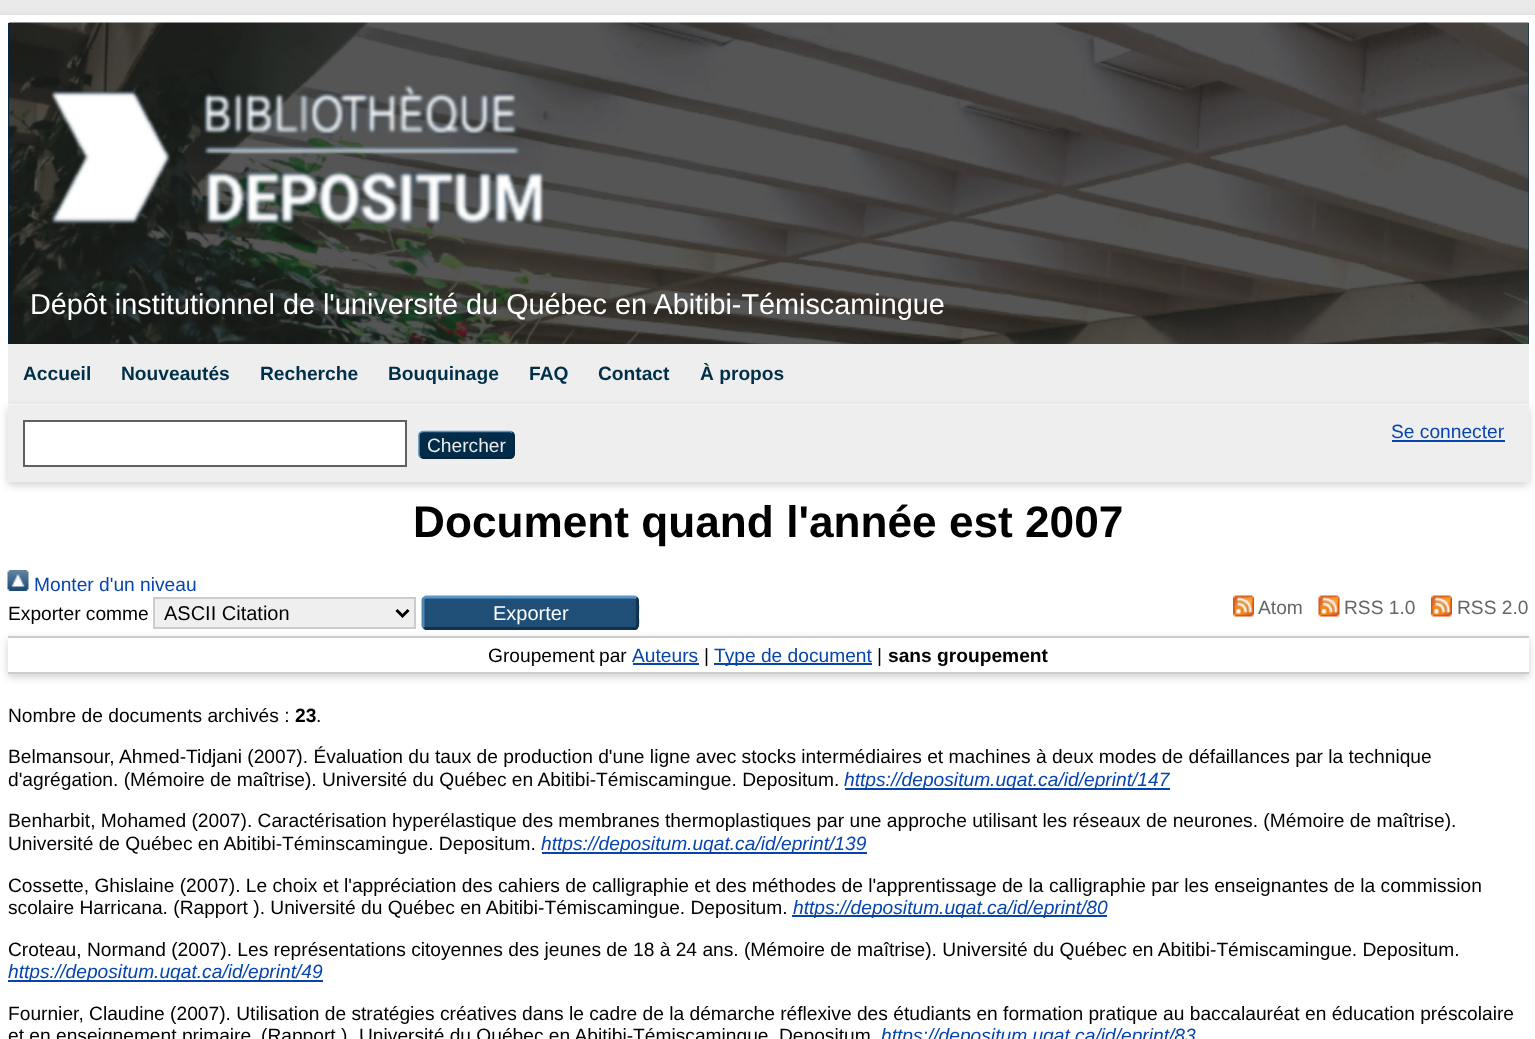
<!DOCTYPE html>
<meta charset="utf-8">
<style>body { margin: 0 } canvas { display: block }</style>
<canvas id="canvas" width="1535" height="1039"></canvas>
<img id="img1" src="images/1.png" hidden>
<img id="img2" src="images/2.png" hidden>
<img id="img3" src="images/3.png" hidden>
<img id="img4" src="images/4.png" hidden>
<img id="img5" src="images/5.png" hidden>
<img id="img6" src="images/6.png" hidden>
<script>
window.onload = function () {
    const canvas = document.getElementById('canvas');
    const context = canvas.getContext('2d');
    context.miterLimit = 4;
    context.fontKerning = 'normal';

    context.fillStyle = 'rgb(234, 234, 234)';
    context.fillRect(0, 0, 1535, 1039);
    context.fillStyle = 'rgba(100, 100, 100, 0.3)';
    context.filter = 'blur(4.5px)';
    context.beginPath();
    context.rect(0, 18, 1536, 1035);
    context.fill();
    context.filter = 'none';
    context.fillStyle = 'rgb(255, 255, 255)';
    context.fillRect(0, 15, 1535, 1024);
    context.fillStyle = 'rgb(0, 43, 73)';
    context.fillRect(8, 23, 1521, 321);
    context.drawImage(document.getElementById('img1'), 8, 22, 1521, 322);
    context.drawImage(document.getElementById('img2'), 50, 84, 494, 141);
    context.fillStyle = 'rgb(238, 238, 238)';
    context.fillRect(8, 344, 1521, 60);
    context.fillStyle = 'rgba(100, 100, 100, 0.3)';
    context.filter = 'blur(4.5px)';
    context.beginPath();
    context.rect(8, 408, 1521, 77);
    context.fill();
    context.filter = 'none';
    context.fillStyle = 'rgb(238, 238, 238)';
    context.fillRect(8, 405, 1521, 77);
    context.fillStyle = 'rgb(6, 69, 173)';
    context.fillRect(1392, 440, 113, 2);
    context.fillStyle = 'rgb(255, 255, 255)';
    context.beginPath();
    context.rect(24, 421, 382, 45);
    context.fill();
    context.strokeStyle = 'rgb(96, 96, 96)';
    context.lineWidth = 2;
    context.stroke();
    context.fillStyle = 'rgb(0, 43, 73)';
    context.beginPath();
    context.roundRect(419, 431, 96, 28, 5);
    context.fill();
    context.beginPath();
    context.moveTo(420.5, 432.5);
    context.lineTo(422.5, 431.5);
    context.lineTo(510.5, 431.5);
    context.lineTo(512.5, 432.5);
    context.strokeStyle = 'rgb(91, 151, 199)';
    context.lineWidth = 1.5;
    context.stroke();
    context.beginPath();
    context.moveTo(512.5, 432.5);
    context.bezierCurveTo(515, 434.5, 514, 442, 514, 445);
    context.bezierCurveTo(514, 461.5, 514.5, 458, 495.5, 458);
    context.lineTo(423, 458);
    context.lineTo(420.5, 457);
    context.strokeStyle = 'rgb(13, 33, 49)';
    context.stroke();
    context.beginPath();
    context.moveTo(420.5, 457);
    context.bezierCurveTo(419.5, 456.5, 419, 455.5, 419, 454.5);
    context.lineTo(419, 435);
    context.bezierCurveTo(419, 434, 419.5, 433, 420.5, 432.5);
    context.strokeStyle = 'rgb(82, 135, 179)';
    context.stroke();
    context.drawImage(document.getElementById('img3'), 7, 570, 22, 21);
    context.fillStyle = 'rgba(100, 100, 100, 0.3)';
    context.filter = 'blur(4.5px)';
    context.beginPath();
    context.rect(8, 639, 1521, 38);
    context.fill();
    context.filter = 'none';
    context.fillStyle = 'rgb(239, 239, 239)';
    context.beginPath();
    context.rect(154, 598, 261, 30);
    context.fill();
    context.strokeStyle = 'rgb(204, 204, 204)';
    context.lineWidth = 2;
    context.stroke();
    context.beginPath();
    context.moveTo(396.5, 610);
    context.lineTo(402.5, 616);
    context.lineTo(408.5, 610);
    context.strokeStyle = 'rgb(0, 0, 0)';
    context.lineWidth = 3;
    context.stroke();
    context.fillStyle = 'rgb(31, 79, 118)';
    context.beginPath();
    context.roundRect(422, 596, 217, 34, 5);
    context.fill();
    context.beginPath();
    context.moveTo(424, 598);
    context.lineTo(426, 597);
    context.lineTo(634.5, 597);
    context.lineTo(636.5, 598);
    context.strokeStyle = 'rgb(91, 151, 199)';
    context.stroke();
    context.beginPath();
    context.moveTo(636.5, 598);
    context.bezierCurveTo(638.5, 600, 637.5, 613.5, 637.5, 617);
    context.bezierCurveTo(637.5, 619, 639, 627, 635.5, 628.5);
    context.lineTo(426, 628.5);
    context.lineTo(424, 627.5);
    context.strokeStyle = 'rgb(19, 50, 74)';
    context.stroke();
    context.beginPath();
    context.moveTo(424, 627.5);
    context.bezierCurveTo(423.5, 627, 423, 626.5, 423, 625.5);
    context.lineTo(423, 600);
    context.bezierCurveTo(423, 599, 423.5, 598.5, 424, 598);
    context.strokeStyle = 'rgb(82, 135, 179)';
    context.stroke();
    context.drawImage(document.getElementById('img4'), 1233, 595, 21, 22);
    context.drawImage(document.getElementById('img5'), 1318, 595, 22, 22);
    context.drawImage(document.getElementById('img6'), 1431, 595, 21, 22);
    context.fillStyle = 'rgb(255, 255, 255)';
    context.fillRect(8, 638, 1521, 34);
    context.fillStyle = 'rgb(204, 204, 204)';
    context.fillRect(8, 636, 1521, 2);
    context.fillRect(8, 672, 1521, 2);
    context.fillStyle = 'rgb(6, 69, 173)';
    context.fillRect(633, 663, 66, 2);
    context.fillRect(714, 663, 158, 2);
    context.fillRect(845, 788, 325, 2);
    context.fillRect(542, 852, 325, 2);
    context.fillRect(792, 915, 315, 2);
    context.fillRect(8, 980, 315, 2);
    context.font = '28.8px Liberation Sans';
    context.fillStyle = 'rgb(255, 255, 255)';
    context.fillText('Dépôt institutionnel de l\'université du Québec en Abitibi-Témiscamingue', 30, 314);
    context.font = 'bold 19.2px Liberation Sans';
    context.fillStyle = 'rgb(0, 47, 73)';
    context.fillText('Accueil', 23, 380);
    context.fillText('Nouveautés', 121, 380);
    context.fillText('Recherche', 260, 380);
    context.fillText('Bouquinage', 388, 380);
    context.fillText('FAQ', 529, 380);
    context.fillText('Contact', 598, 380);
    context.fillText('À propos', 700, 380);
    context.font = '19.2px Liberation Sans';
    context.fillStyle = 'rgb(6, 69, 173)';
    context.fillText('Se connecter', 1391, 438);
    context.fillStyle = 'rgb(235, 235, 235)';
    context.fillText('Chercher', 427, 452);
    context.font = 'bold 44.2px Liberation Sans';
    context.fillStyle = 'rgb(0, 0, 0)';
    context.fillText('Document quand l\'année est 2007', 413, 537);
    context.font = '19.2px Liberation Sans';
    context.fillStyle = 'rgb(6, 69, 173)';
    context.fillText('Monter d\'un niveau', 34, 591);
    context.fillStyle = 'rgb(0, 0, 0)';
    context.fillText('Exporter comme', 8, 620);
    context.font = '20px Liberation Sans';
    context.fillText('ASCII Citation', 164, 620);
    context.fillStyle = 'rgb(255, 255, 255)';
    context.fillText('Exporter', 493, 620);
    context.font = '19.2px Liberation Sans';
    context.fillStyle = 'rgb(102, 102, 102)';
    context.fillText('Atom', 1258, 614);
    context.fillText('RSS 1.0', 1344, 614);
    context.fillText('RSS 2.0', 1457, 614);
    context.wordSpacing = '-1px';
    context.fillStyle = 'rgb(0, 0, 0)';
    context.fillText('Groupement par', 488, 662);
    context.wordSpacing = '0px';
    context.fillStyle = 'rgb(6, 69, 173)';
    context.fillText('Auteurs', 632, 662);
    context.fillStyle = 'rgb(0, 0, 0)';
    context.fillText('|', 704, 662);
    context.fillStyle = 'rgb(6, 69, 173)';
    context.fillText('Type de document', 714, 662);
    context.fillStyle = 'rgb(0, 0, 0)';
    context.fillText('|', 877, 662);
    context.font = 'bold 19.2px Liberation Sans';
    context.fillText('sans groupement', 888, 662);
    context.font = '19.2px Liberation Sans';
    context.fillText('Nombre de documents archivés :', 8, 722);
    context.font = 'bold 19.2px Liberation Sans';
    context.fillText('23', 295, 722);
    context.font = '19.2px Liberation Sans';
    context.fillText('.', 316, 722);
    context.fillText('Belmansour, Ahmed-Tidjani (2007). Évaluation du taux de production d\'une ligne avec stocks intermédiaires et machines à deux modes de défaillances par la technique', 8, 763);
    context.fillText('d\'agrégation. (Mémoire de maîtrise). Université du Québec en Abitibi-Témiscamingue. Depositum.', 8, 786);
    context.font = 'italic 19.2px Liberation Sans';
    context.fillStyle = 'rgb(6, 69, 173)';
    context.fillText('https://depositum.uqat.ca/id/eprint/147', 844, 786);
    context.font = '19.2px Liberation Sans';
    context.fillStyle = 'rgb(0, 0, 0)';
    context.fillText('Benharbit, Mohamed (2007). Caractérisation hyperélastique des membranes thermoplastiques par une approche utilisant les réseaux de neurones. (Mémoire de maîtrise).', 8, 827);
    context.fillText('Université de Québec en Abitibi-Téminscamingue. Depositum.', 8, 850);
    context.font = 'italic 19.2px Liberation Sans';
    context.fillStyle = 'rgb(6, 69, 173)';
    context.fillText('https://depositum.uqat.ca/id/eprint/139', 541, 850);
    context.font = '19.2px Liberation Sans';
    context.fillStyle = 'rgb(0, 0, 0)';
    context.fillText('Cossette, Ghislaine (2007). Le choix et l\'appréciation des cahiers de calligraphie et des méthodes de l\'apprentissage de la calligraphie par les enseignantes de la commission', 8, 892);
    context.fillText('scolaire Harricana. (Rapport ). Université du Québec en Abitibi-Témiscamingue. Depositum.', 8, 914);
    context.font = 'italic 19.2px Liberation Sans';
    context.fillStyle = 'rgb(6, 69, 173)';
    context.fillText('https://depositum.uqat.ca/id/eprint/80', 793, 914);
    context.font = '19.2px Liberation Sans';
    context.fillStyle = 'rgb(0, 0, 0)';
    context.fillText('Croteau, Normand (2007). Les représentations citoyennes des jeunes de 18 à 24 ans. (Mémoire de maîtrise). Université du Québec en Abitibi-Témiscamingue. Depositum.', 8, 956);
    context.font = 'italic 19.2px Liberation Sans';
    context.fillStyle = 'rgb(6, 69, 173)';
    context.fillText('https://depositum.uqat.ca/id/eprint/49', 8, 978);
    context.font = '19.2px Liberation Sans';
    context.fillStyle = 'rgb(0, 0, 0)';
    context.fillText('Fournier, Claudine (2007). Utilisation de stratégies créatives dans le cadre de la démarche réflexive des étudiants en formation pratique au baccalauréat en éducation préscolaire', 8, 1020);
    context.fillText('et en enseignement primaire', 8, 1042);
    context.fillText('(Rapport )', 261, 1042);
    context.fillText('Université du Québec en Abitibi-Témiscamingue', 359, 1042);
    context.fillText('Depositum', 779, 1042);
    context.font = 'italic 19.2px Liberation Sans';
    context.fillStyle = 'rgb(6, 69, 173)';
    context.fillText('https://depositum.uqat.ca/id/eprint/83', 881, 1042);
};
</script>
